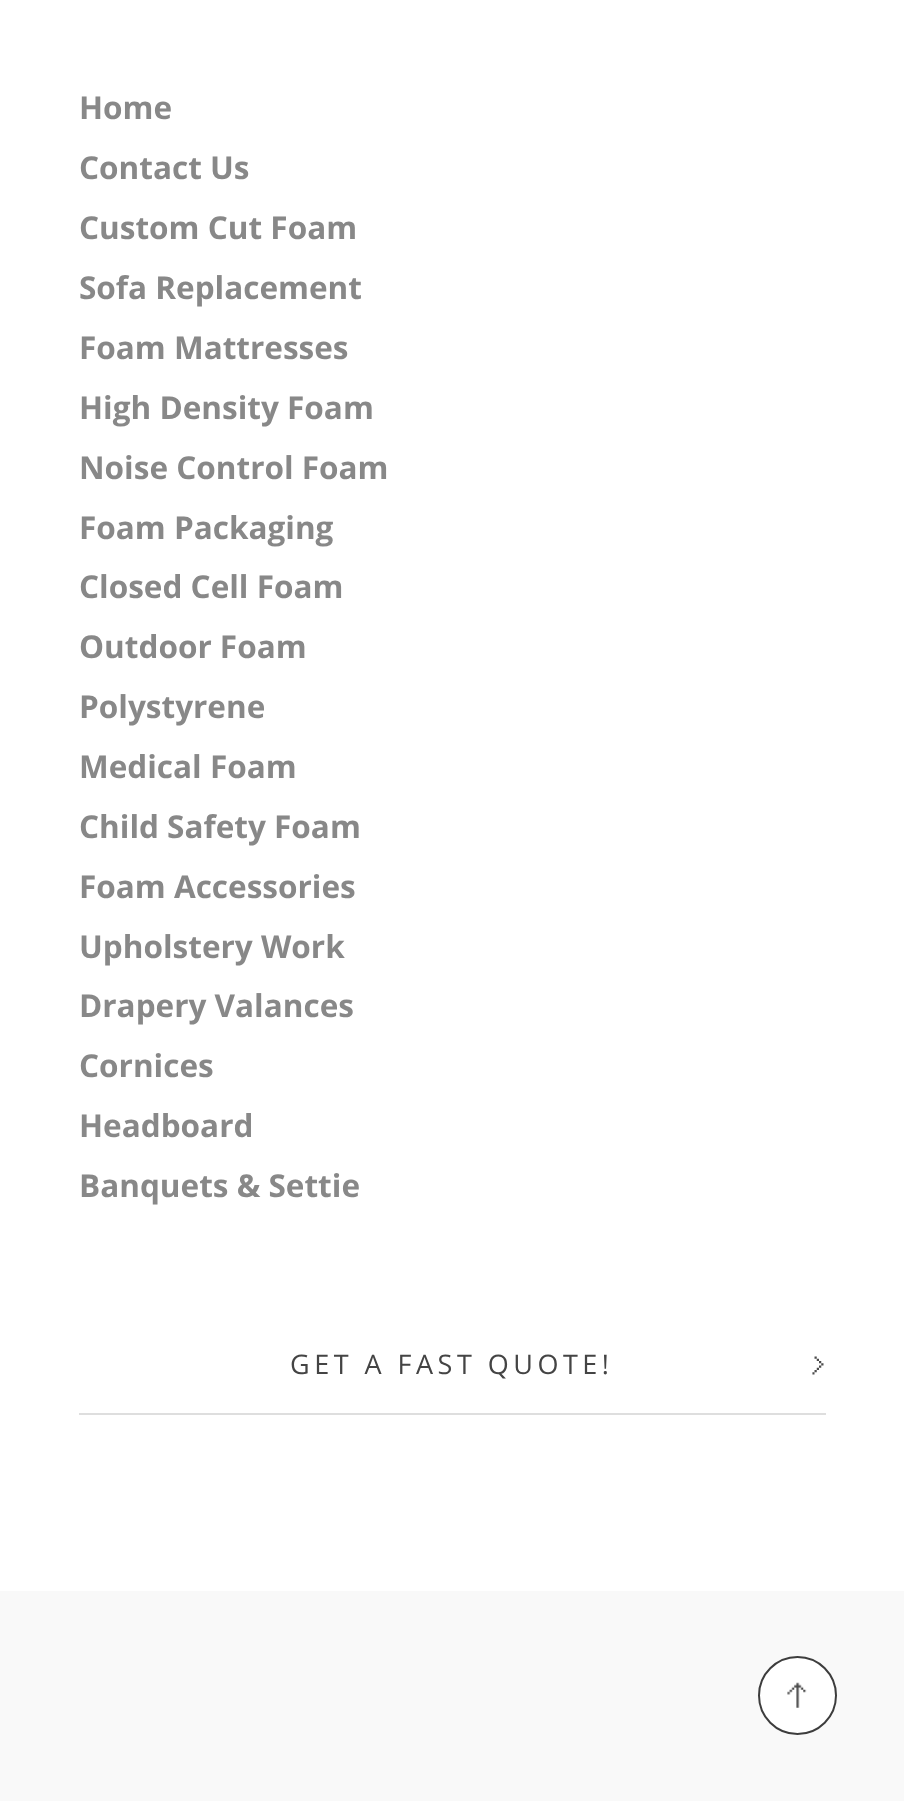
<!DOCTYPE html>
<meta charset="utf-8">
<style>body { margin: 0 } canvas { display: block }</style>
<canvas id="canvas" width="904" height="1801"></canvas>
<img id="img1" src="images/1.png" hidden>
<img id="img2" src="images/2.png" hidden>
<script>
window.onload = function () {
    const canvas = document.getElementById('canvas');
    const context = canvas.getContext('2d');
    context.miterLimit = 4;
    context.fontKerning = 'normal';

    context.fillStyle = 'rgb(255, 255, 255)';
    context.fillRect(0, 0, 904, 1801);
    context.fillStyle = 'rgb(222, 222, 222)';
    context.fillRect(79, 1413, 747, 2);
    context.drawImage(document.getElementById('img1'), 812, 1356, 12, 19);
    context.fillStyle = 'rgb(249, 249, 249)';
    context.fillRect(0, 1591, 904, 210);
    context.fillStyle = 'rgb(255, 255, 255)';
    context.beginPath();
    context.arc(797.5, 1695.5, 38.5, 0, 2 * Math.PI);
    context.fill();
    context.strokeStyle = 'rgb(61, 61, 61)';
    context.lineWidth = 2;
    context.stroke();
    context.drawImage(document.getElementById('img2'), 787, 1682, 20, 26);
    context.font = 'bold 31.5px Open Sans';
    context.fillStyle = 'rgb(136, 136, 136)';
    context.fillText('Home', 79, 119);
    context.fillText('Contact Us', 79, 179);
    context.fillText('Custom Cut Foam', 79, 239);
    context.fillText('Sofa Replacement', 79, 299);
    context.fillText('Foam Mattresses', 79, 359);
    context.fillText('High Density Foam', 79, 419);
    context.fillText('Noise Control Foam', 79, 479);
    context.fillText('Foam Packaging', 79, 539);
    context.fillText('Closed Cell Foam', 79, 598);
    context.fillText('Outdoor Foam', 79, 658);
    context.fillText('Polystyrene', 79, 718);
    context.fillText('Medical Foam', 79, 778);
    context.fillText('Child Safety Foam', 79, 838);
    context.fillText('Foam Accessories', 79, 898);
    context.fillText('Upholstery Work', 79, 958);
    context.fillText('Drapery Valances', 79, 1017);
    context.fillText('Cornices', 79, 1077);
    context.fillText('Headboard', 79, 1137);
    context.fillText('Banquets & Settie', 79, 1197);
    context.letterSpacing = '4.5px';
    context.font = '27px Open Sans';
    context.fillStyle = 'rgb(68, 68, 68)';
    context.fillText('GET A FAST QUOTE!', 290, 1374);
};
</script>
